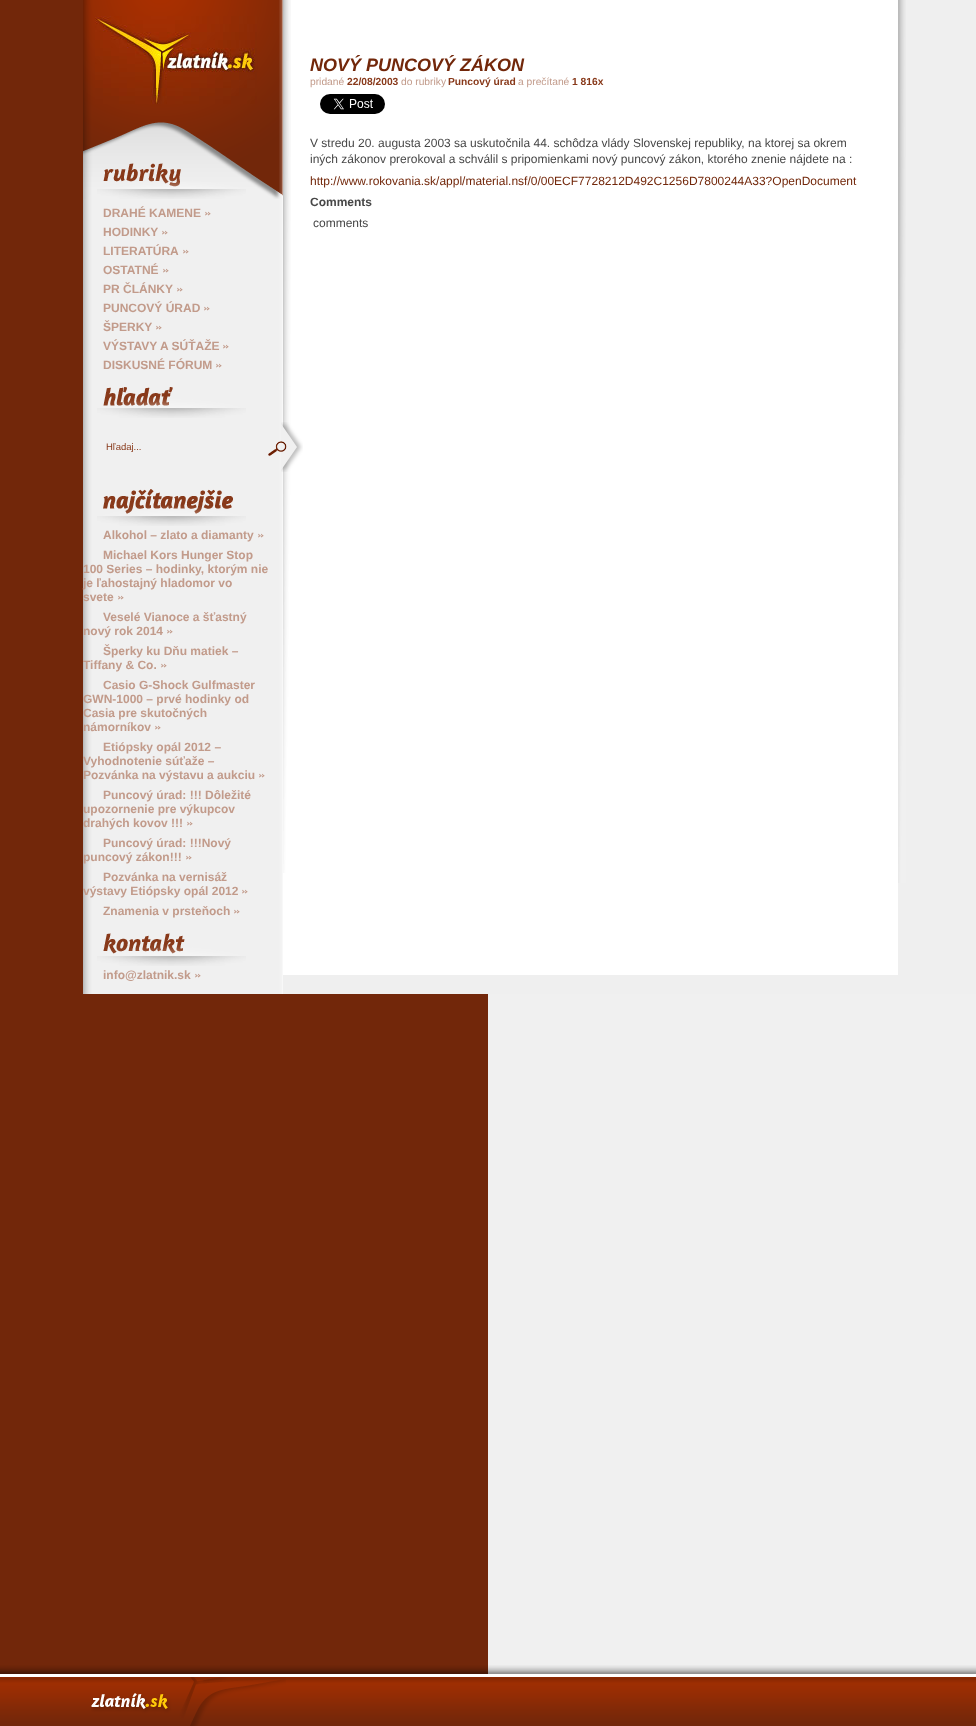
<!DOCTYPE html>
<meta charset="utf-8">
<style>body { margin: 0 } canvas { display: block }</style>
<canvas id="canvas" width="976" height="1726"></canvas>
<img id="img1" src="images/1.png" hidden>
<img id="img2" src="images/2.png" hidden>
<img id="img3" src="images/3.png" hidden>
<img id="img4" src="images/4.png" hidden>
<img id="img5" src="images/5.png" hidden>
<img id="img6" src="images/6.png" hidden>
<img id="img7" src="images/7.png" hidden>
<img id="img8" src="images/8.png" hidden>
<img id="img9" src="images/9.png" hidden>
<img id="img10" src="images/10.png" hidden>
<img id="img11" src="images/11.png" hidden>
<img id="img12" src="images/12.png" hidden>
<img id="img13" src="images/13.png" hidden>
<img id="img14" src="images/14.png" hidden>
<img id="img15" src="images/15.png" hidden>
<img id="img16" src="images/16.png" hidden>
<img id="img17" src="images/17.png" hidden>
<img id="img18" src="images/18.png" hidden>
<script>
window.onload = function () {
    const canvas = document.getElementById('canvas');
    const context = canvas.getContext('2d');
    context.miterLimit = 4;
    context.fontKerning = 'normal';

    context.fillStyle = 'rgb(114, 39, 10)';
    context.fillRect(0, 0, 976, 1726);
    context.fillStyle = 'rgb(239, 239, 239)';
    context.fillRect(283, 0, 693, 994);
    context.drawImage(document.getElementById('img1'), 83, 199, 200, 795);
    context.fillStyle = 'rgb(255, 255, 255)';
    context.fillRect(283, 0, 615, 975);
    context.drawImage(document.getElementById('img2'), 283, 0, 8, 873);
    context.drawImage(document.getElementById('img3'), 320, 94, 65, 20);
    context.drawImage(document.getElementById('img4'), 898, 0, 8, 883);
    context.drawImage(document.getElementById('img5'), 83, 0, 200, 199);
    context.drawImage(document.getElementById('img6'), 95, 16, 162, 88);
    context.drawImage(document.getElementById('img7'), 103, 163, 78, 24);
    context.drawImage(document.getElementById('img8'), 97, 178, 149, 21);
    context.drawImage(document.getElementById('img9'), 205, 211, 6, 5);
    context.drawImage(document.getElementById('img9'), 162, 230, 6, 5);
    context.drawImage(document.getElementById('img9'), 183, 249, 6, 5);
    context.drawImage(document.getElementById('img9'), 163, 268, 6, 5);
    context.drawImage(document.getElementById('img9'), 177, 287, 6, 5);
    context.drawImage(document.getElementById('img9'), 204, 306, 6, 5);
    context.drawImage(document.getElementById('img9'), 156, 325, 6, 5);
    context.drawImage(document.getElementById('img9'), 223, 344, 6, 5);
    context.drawImage(document.getElementById('img9'), 216, 363, 6, 5);
    context.drawImage(document.getElementById('img10'), 103, 387, 70, 19);
    context.drawImage(document.getElementById('img11'), 97, 397, 149, 21);
    context.drawImage(document.getElementById('img12'), 268, 422, 35, 50);
    context.drawImage(document.getElementById('img13'), 103, 489, 130, 25);
    context.drawImage(document.getElementById('img14'), 97, 505, 149, 21);
    context.drawImage(document.getElementById('img9'), 258, 533, 6, 5);
    context.drawImage(document.getElementById('img9'), 118, 595, 6, 5);
    context.drawImage(document.getElementById('img9'), 167, 629, 6, 5);
    context.drawImage(document.getElementById('img9'), 161, 663, 6, 5);
    context.drawImage(document.getElementById('img9'), 155, 725, 6, 5);
    context.drawImage(document.getElementById('img9'), 259, 773, 6, 5);
    context.drawImage(document.getElementById('img9'), 187, 821, 6, 5);
    context.drawImage(document.getElementById('img9'), 186, 855, 6, 5);
    context.drawImage(document.getElementById('img9'), 242, 889, 6, 5);
    context.drawImage(document.getElementById('img9'), 234, 909, 6, 5);
    context.drawImage(document.getElementById('img15'), 103, 933, 82, 21);
    context.drawImage(document.getElementById('img16'), 97, 945, 149, 21);
    context.drawImage(document.getElementById('img9'), 195, 973, 6, 5);
    context.fillStyle = 'rgb(240, 240, 240)';
    context.fillRect(488, 994, 488, 680);
    context.drawImage(document.getElementById('img17'), 0, 1665, 976, 61);
    context.drawImage(document.getElementById('img18'), 91, 1677, 195, 49);
    context.font = 'italic bold 18px Liberation Sans';
    context.fillStyle = 'rgb(114, 39, 10)';
    context.fillText('NOVÝ PUNCOVÝ ZÁKON', 310, 71);
    context.font = '10.25px Liberation Sans';
    context.fillStyle = 'rgb(194, 155, 139)';
    context.fillText('pridané', 310, 85);
    context.font = 'bold 10.25px Liberation Sans';
    context.fillStyle = 'rgb(136, 57, 26)';
    context.fillText('22/08/2003', 347, 85);
    context.font = '10.25px Liberation Sans';
    context.fillStyle = 'rgb(194, 155, 139)';
    context.fillText('do rubriky', 401, 85);
    context.font = 'bold 10.25px Liberation Sans';
    context.fillStyle = 'rgb(136, 57, 26)';
    context.fillText('Puncový úrad', 448, 85);
    context.font = '10.25px Liberation Sans';
    context.fillStyle = 'rgb(194, 155, 139)';
    context.fillText('a prečítané', 518, 85);
    context.font = 'bold 10.25px Liberation Sans';
    context.fillStyle = 'rgb(136, 57, 26)';
    context.fillText('1 816x', 572, 85);
    context.font = '12px Liberation Sans';
    context.fillStyle = 'rgb(71, 71, 71)';
    context.fillText('V stredu 20. augusta 2003 sa uskutočnila 44. schôdza vlády Slovenskej republiky, na ktorej sa okrem', 310, 147);
    context.fillText('iných zákonov prerokoval a schválil s pripomienkami nový puncový zákon, ktorého znenie nájdete na :', 310, 163);
    context.fillStyle = 'rgb(114, 39, 10)';
    context.fillText('http://www.rokovania.sk/appl/material.nsf/0/00ECF7728212D492C1256D7800244A33?OpenDocument', 310, 185);
    context.font = 'bold 12px Liberation Sans';
    context.fillStyle = 'rgb(71, 71, 71)';
    context.fillText('Comments', 310, 206);
    context.font = '12px Liberation Sans';
    context.fillText('comments', 313, 227);
    context.font = 'bold 12px Liberation Sans';
    context.fillStyle = 'rgb(194, 155, 139)';
    context.fillText('DRAHÉ KAMENE', 103, 217);
    context.fillText('HODINKY', 103, 236);
    context.fillText('LITERATÚRA', 103, 255);
    context.fillText('OSTATNÉ', 103, 274);
    context.fillText('PR ČLÁNKY', 103, 293);
    context.fillText('PUNCOVÝ ÚRAD', 103, 312);
    context.fillText('ŠPERKY', 103, 331);
    context.fillText('VÝSTAVY A SÚŤAŽE', 103, 350);
    context.fillText('DISKUSNÉ FÓRUM', 103, 369);
    context.font = '9.5px Liberation Sans';
    context.fillStyle = 'rgb(136, 57, 26)';
    context.fillText('Hľadaj...', 106, 450);
    context.font = 'bold 12px Liberation Sans';
    context.fillStyle = 'rgb(194, 155, 139)';
    context.fillText('Alkohol – zlato a diamanty', 103, 539);
    context.fillText('Michael Kors Hunger Stop', 103, 559);
    context.fillText('100 Series – hodinky, ktorým nie', 83, 573);
    context.fillText('je ľahostajný hladomor vo', 83, 587);
    context.fillText('svete', 83, 601);
    context.fillText('Veselé Vianoce a šťastný', 103, 621);
    context.fillText('nový rok 2014', 83, 635);
    context.fillText('Šperky ku Dňu matiek –', 103, 655);
    context.fillText('Tiffany & Co.', 83, 669);
    context.fillText('Casio G-Shock Gulfmaster', 103, 689);
    context.fillText('GWN-1000 – prvé hodinky od', 83, 703);
    context.fillText('Casia pre skutočných', 83, 717);
    context.fillText('námorníkov', 83, 731);
    context.fillText('Etiópsky opál 2012 –', 103, 751);
    context.fillText('Vyhodnotenie súťaže –', 83, 765);
    context.fillText('Pozvánka na výstavu a aukciu', 83, 779);
    context.fillText('Puncový úrad: !!! Dôležité', 103, 799);
    context.fillText('upozornenie pre výkupcov', 83, 813);
    context.fillText('drahých kovov !!!', 83, 827);
    context.fillText('Puncový úrad: !!!Nový', 103, 847);
    context.fillText('puncový zákon!!!', 83, 861);
    context.fillText('Pozvánka na vernisáž', 103, 881);
    context.fillText('výstavy Etiópsky opál 2012', 83, 895);
    context.fillText('Znamenia v prsteňoch', 103, 915);
    context.fillText('info@zlatnik.sk', 103, 979);
};
</script>
